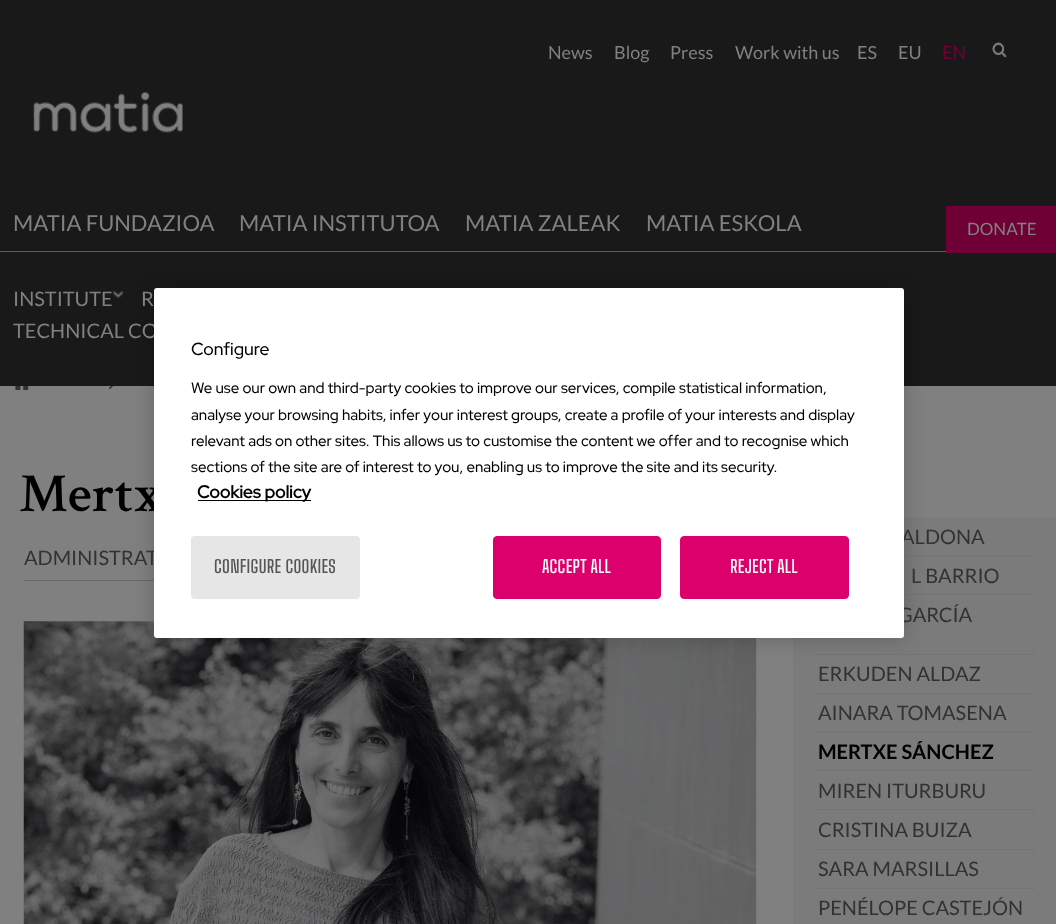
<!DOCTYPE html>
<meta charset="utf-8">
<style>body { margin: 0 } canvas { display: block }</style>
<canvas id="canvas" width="1056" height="924"></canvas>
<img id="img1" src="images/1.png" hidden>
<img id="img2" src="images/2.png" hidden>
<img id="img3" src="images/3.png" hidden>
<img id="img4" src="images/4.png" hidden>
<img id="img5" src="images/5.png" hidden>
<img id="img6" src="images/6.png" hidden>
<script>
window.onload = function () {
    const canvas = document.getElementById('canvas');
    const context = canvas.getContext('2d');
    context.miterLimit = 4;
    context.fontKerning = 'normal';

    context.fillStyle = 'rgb(128, 128, 128)';
    context.fillRect(0, 0, 1056, 924);
    context.fillStyle = 'rgb(25, 25, 25)';
    context.fillRect(0, 0, 1056, 386);
    context.drawImage(document.getElementById('img1'), 992, 42, 15, 16);
    context.drawImage(document.getElementById('img2'), 33, 92, 150, 41);
    context.fillStyle = 'rgb(92, 92, 92)';
    context.fillRect(0, 251, 946, 1);
    context.fillStyle = 'rgb(110, 0, 54)';
    context.fillRect(946, 206, 110, 47);
    context.drawImage(document.getElementById('img3'), 112, 291, 12, 8);
    context.drawImage(document.getElementById('img4'), 15, 386, 14, 4);
    context.drawImage(document.getElementById('img5'), 109, 386, 4, 4);
    context.fillStyle = 'rgb(106, 106, 106)';
    context.fillRect(24, 580, 130, 1);
    context.drawImage(document.getElementById('img6'), 23, 621, 734, 303);
    context.fillStyle = 'rgb(123, 123, 123)';
    context.fillRect(904, 518, 152, 77);
    context.fillStyle = 'rgb(117, 117, 117)';
    context.fillRect(904, 555, 131, 1);
    context.fillRect(904, 594, 131, 1);
    context.fillStyle = 'rgb(123, 123, 123)';
    context.fillRect(793, 595, 263, 329);
    context.fillStyle = 'rgb(117, 117, 117)';
    context.fillRect(814, 654, 221, 1);
    context.fillRect(814, 693, 221, 1);
    context.fillRect(814, 731, 221, 1);
    context.fillRect(814, 770, 221, 1);
    context.fillRect(814, 809, 221, 1);
    context.fillRect(814, 849, 221, 1);
    context.fillRect(814, 888, 221, 1);
    context.fillStyle = 'rgba(0, 0, 0, 0.2)';
    context.filter = 'blur(11px)';
    context.beginPath();
    context.roundRect(154, 288, 750, 350, 3);
    context.fill();
    context.filter = 'none';
    context.font = '18px Lato';
    context.fillStyle = 'rgb(128, 128, 128)';
    context.fillText('News', 548, 59);
    context.fillText('Blog', 614, 59);
    context.fillText('Press', 670, 59);
    context.fillText('Work with us', 735, 59);
    context.fillText('ES', 857, 59);
    context.fillText('EU', 898, 59);
    context.fillStyle = 'rgb(110, 0, 54)';
    context.fillText('EN', 942, 59);
    context.font = '22px Lato';
    context.fillStyle = 'rgb(128, 128, 128)';
    context.fillText('MATIA FUNDAZIOA', 13, 231);
    context.fillText('MATIA INSTITUTOA', 239, 231);
    context.fillText('MATIA ZALEAK', 465, 231);
    context.fillText('MATIA ESKOLA', 646, 231);
    context.font = '17px Lato';
    context.fillText('DONATE', 967, 235);
    context.font = '20px Lato';
    context.fillText('INSTITUTE', 13, 306);
    context.fillText('R', 141, 306);
    context.fillText('TECHNICAL CO', 13, 338);
    context.font = '600 55px Crimson Text';
    context.fillStyle = 'rgb(0, 0, 0)';
    context.fillText('Mertx', 19, 511);
    context.font = '20px Lato';
    context.fillStyle = 'rgb(50, 50, 50)';
    context.fillText('ADMINISTRAT', 24, 565);
    context.fillText('ALDONA', 901, 544);
    context.fillText('L BARRIO', 911, 583);
    context.fillText('GARCÍA', 898, 622);
    context.fillText('ERKUDEN ALDAZ', 818, 681);
    context.fillText('AINARA TOMASENA', 818, 720);
    context.font = 'bold 20px Lato';
    context.fillStyle = 'rgb(0, 0, 0)';
    context.fillText('MERTXE SÁNCHEZ', 818, 759);
    context.font = '20px Lato';
    context.fillStyle = 'rgb(50, 50, 50)';
    context.fillText('MIREN ITURBURU', 818, 798);
    context.fillText('CRISTINA BUIZA', 818, 837);
    context.fillText('SARA MARSILLAS', 818, 876);
    context.fillText('PENÉLOPE CASTEJÓN', 818, 915);
    context.fillStyle = 'rgb(255, 255, 255)';
    context.beginPath();
    context.roundRect(154, 288, 750, 350, 3);
    context.fill();
    context.font = '500 17.5px Red Hat Display';
    context.fillStyle = 'rgb(0, 0, 0)';
    context.fillText('Configure', 191, 355);
    context.font = '500 15px Red Hat Display';
    context.fillText('We use our own and third-party cookies to improve our services, compile statistical information,', 191, 393);
    context.fillText('analyse your browsing habits, infer your interest groups, create a profile of your interests and display', 191, 420);
    context.fillText('relevant ads on other sites. This allows us to customise the content we offer and to recognise which', 191, 446);
    context.fillText('sections of the site are of interest to you, enabling us to improve the site and its security.', 191, 472);
    context.fillRect(198, 500, 113, 1);
    context.font = 'bold 17.5px Red Hat Display';
    context.fillText('Cookies policy', 197, 498);
    context.fillStyle = 'rgb(230, 230, 230)';
    context.beginPath();
    context.roundRect(191, 536, 169, 63, 4);
    context.fill();
    context.letterSpacing = '0.3px';
    context.font = '100 17.5px Big Shoulders Text';
    context.fillStyle = 'rgb(86, 86, 86)';
    context.fillText('CONFIGURE COOKIES', 214, 573);
    context.fillStyle = 'rgb(220, 0, 108)';
    context.beginPath();
    context.roundRect(493.5, 536.5, 167, 62, 3.5);
    context.fill();
    context.strokeStyle = 'rgb(220, 0, 108)';
    context.stroke();
    context.fillStyle = 'rgb(255, 255, 255)';
    context.fillText('ACCEPT ALL', 542, 573);
    context.fillStyle = 'rgb(220, 0, 108)';
    context.beginPath();
    context.roundRect(680.5, 536.5, 168, 62, 3.5);
    context.fill();
    context.stroke();
    context.fillStyle = 'rgb(255, 255, 255)';
    context.fillText('REJECT ALL', 730, 573);
};
</script>
